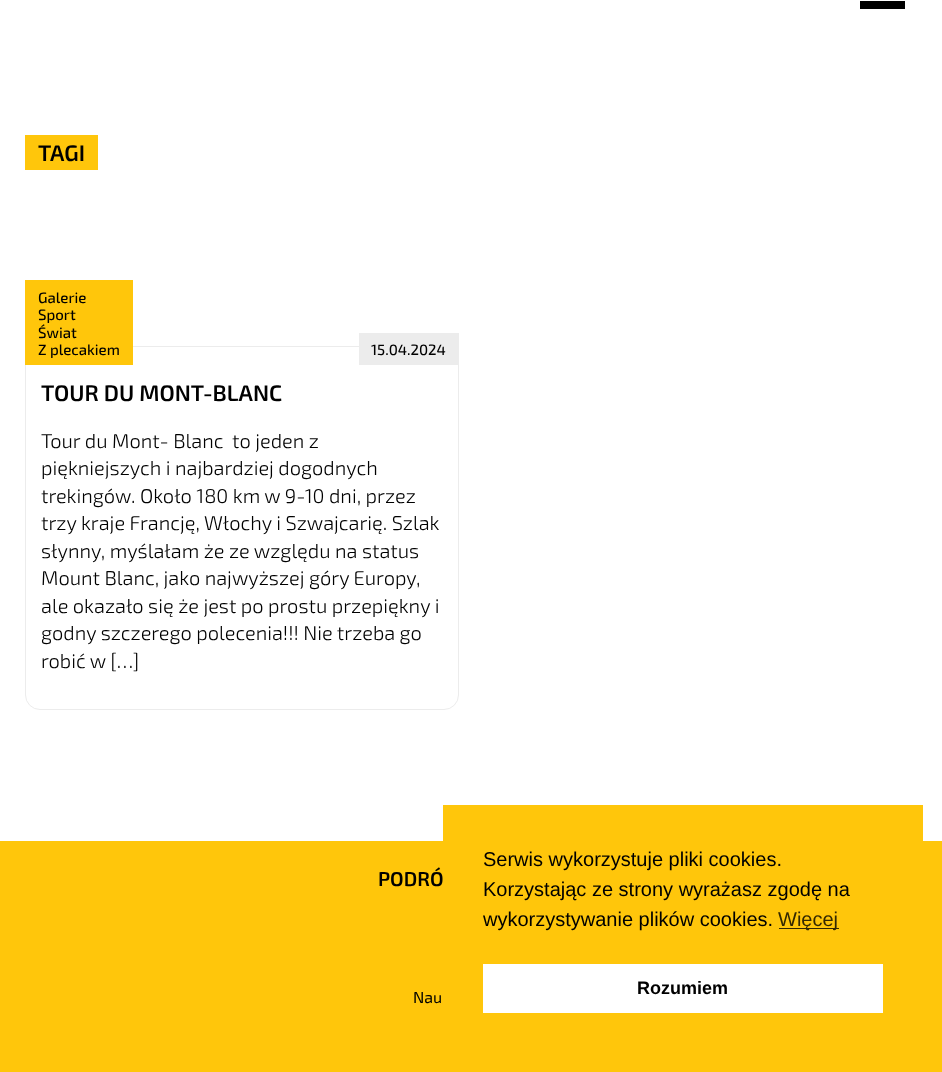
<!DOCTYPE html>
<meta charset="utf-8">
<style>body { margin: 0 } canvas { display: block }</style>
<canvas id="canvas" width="942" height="1072"></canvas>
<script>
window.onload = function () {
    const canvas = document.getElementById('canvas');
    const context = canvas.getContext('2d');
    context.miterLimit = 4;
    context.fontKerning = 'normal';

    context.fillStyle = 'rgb(255, 255, 255)';
    context.fillRect(0, 0, 942, 1072);
    context.fillStyle = 'rgb(0, 0, 0)';
    context.fillRect(860, 1, 45, 8);
    context.fillStyle = 'rgb(255, 198, 11)';
    context.fillRect(25, 135, 73, 35);
    context.beginPath();
    context.roundRect(25.5, 346.5, 433, 363, 14.5);
    context.strokeStyle = 'rgb(236, 236, 236)';
    context.stroke();
    context.fillRect(25, 280, 108, 85);
    context.fillStyle = 'rgb(236, 236, 236)';
    context.fillRect(359, 333, 100, 32);
    context.fillStyle = 'rgb(255, 198, 11)';
    context.fillRect(0, 841, 942, 231);
    context.fillRect(443, 805, 480, 36);
    context.fillStyle = 'rgb(51, 40, 2)';
    context.fillRect(779, 928, 60, 1);
    context.fillStyle = 'rgb(255, 255, 255)';
    context.fillRect(483, 964, 400, 49);
    context.font = '600 22.5px "Exo 2"';
    context.fillStyle = 'rgb(0, 0, 0)';
    context.fillText('TAGI', 38, 161);
    context.font = '500 15px "Exo 2"';
    context.fillText('Galerie', 38, 303);
    context.fillText('Sport', 38, 320);
    context.fillText('Świat', 38, 338);
    context.fillText('Z plecakiem', 38, 355);
    context.fillText('15.04.2024', 371, 355);
    context.font = '600 22.5px "Exo 2"';
    context.fillText('TOUR DU MONT-BLANC', 41, 401);
    context.font = '300 20px "Exo 2"';
    context.fillText('Tour du Mont- Blanc  to jeden z', 41, 448);
    context.fillText('piękniejszych i najbardziej dogodnych', 41, 475);
    context.fillText('trekingów. Około 180 km w 9-10 dni, przez', 41, 503);
    context.fillText('trzy kraje Francję, Włochy i Szwajcarię. Szlak', 41, 530);
    context.fillText('słynny, myślałam że ze względu na status', 41, 558);
    context.fillText('Mount Blanc, jako najwyższej góry Europy,', 41, 585);
    context.fillText('ale okazało się że jest po prostu przepiękny i', 41, 613);
    context.fillText('godny szczerego polecenia!!! Nie trzeba go', 41, 640);
    context.fillText('robić w […]', 41, 668);
    context.font = '600 20px "Exo 2"';
    context.fillText('PODRÓ', 378, 886);
    context.font = '16px "Exo 2"';
    context.fillText('Nau', 413, 1003);
    context.font = '20px Liberation Sans';
    context.fillText('Serwis wykorzystuje pliki cookies.', 483, 866);
    context.fillText('Korzystając ze strony wyrażasz zgodę na', 483, 896);
    context.fillText('wykorzystywanie plików cookies.', 483, 926);
    context.fillStyle = 'rgb(51, 40, 2)';
    context.fillText('Więcej', 778, 926);
    context.font = 'bold 18px Liberation Sans';
    context.fillStyle = 'rgb(0, 0, 0)';
    context.fillText('Rozumiem', 637, 994);
};
</script>
